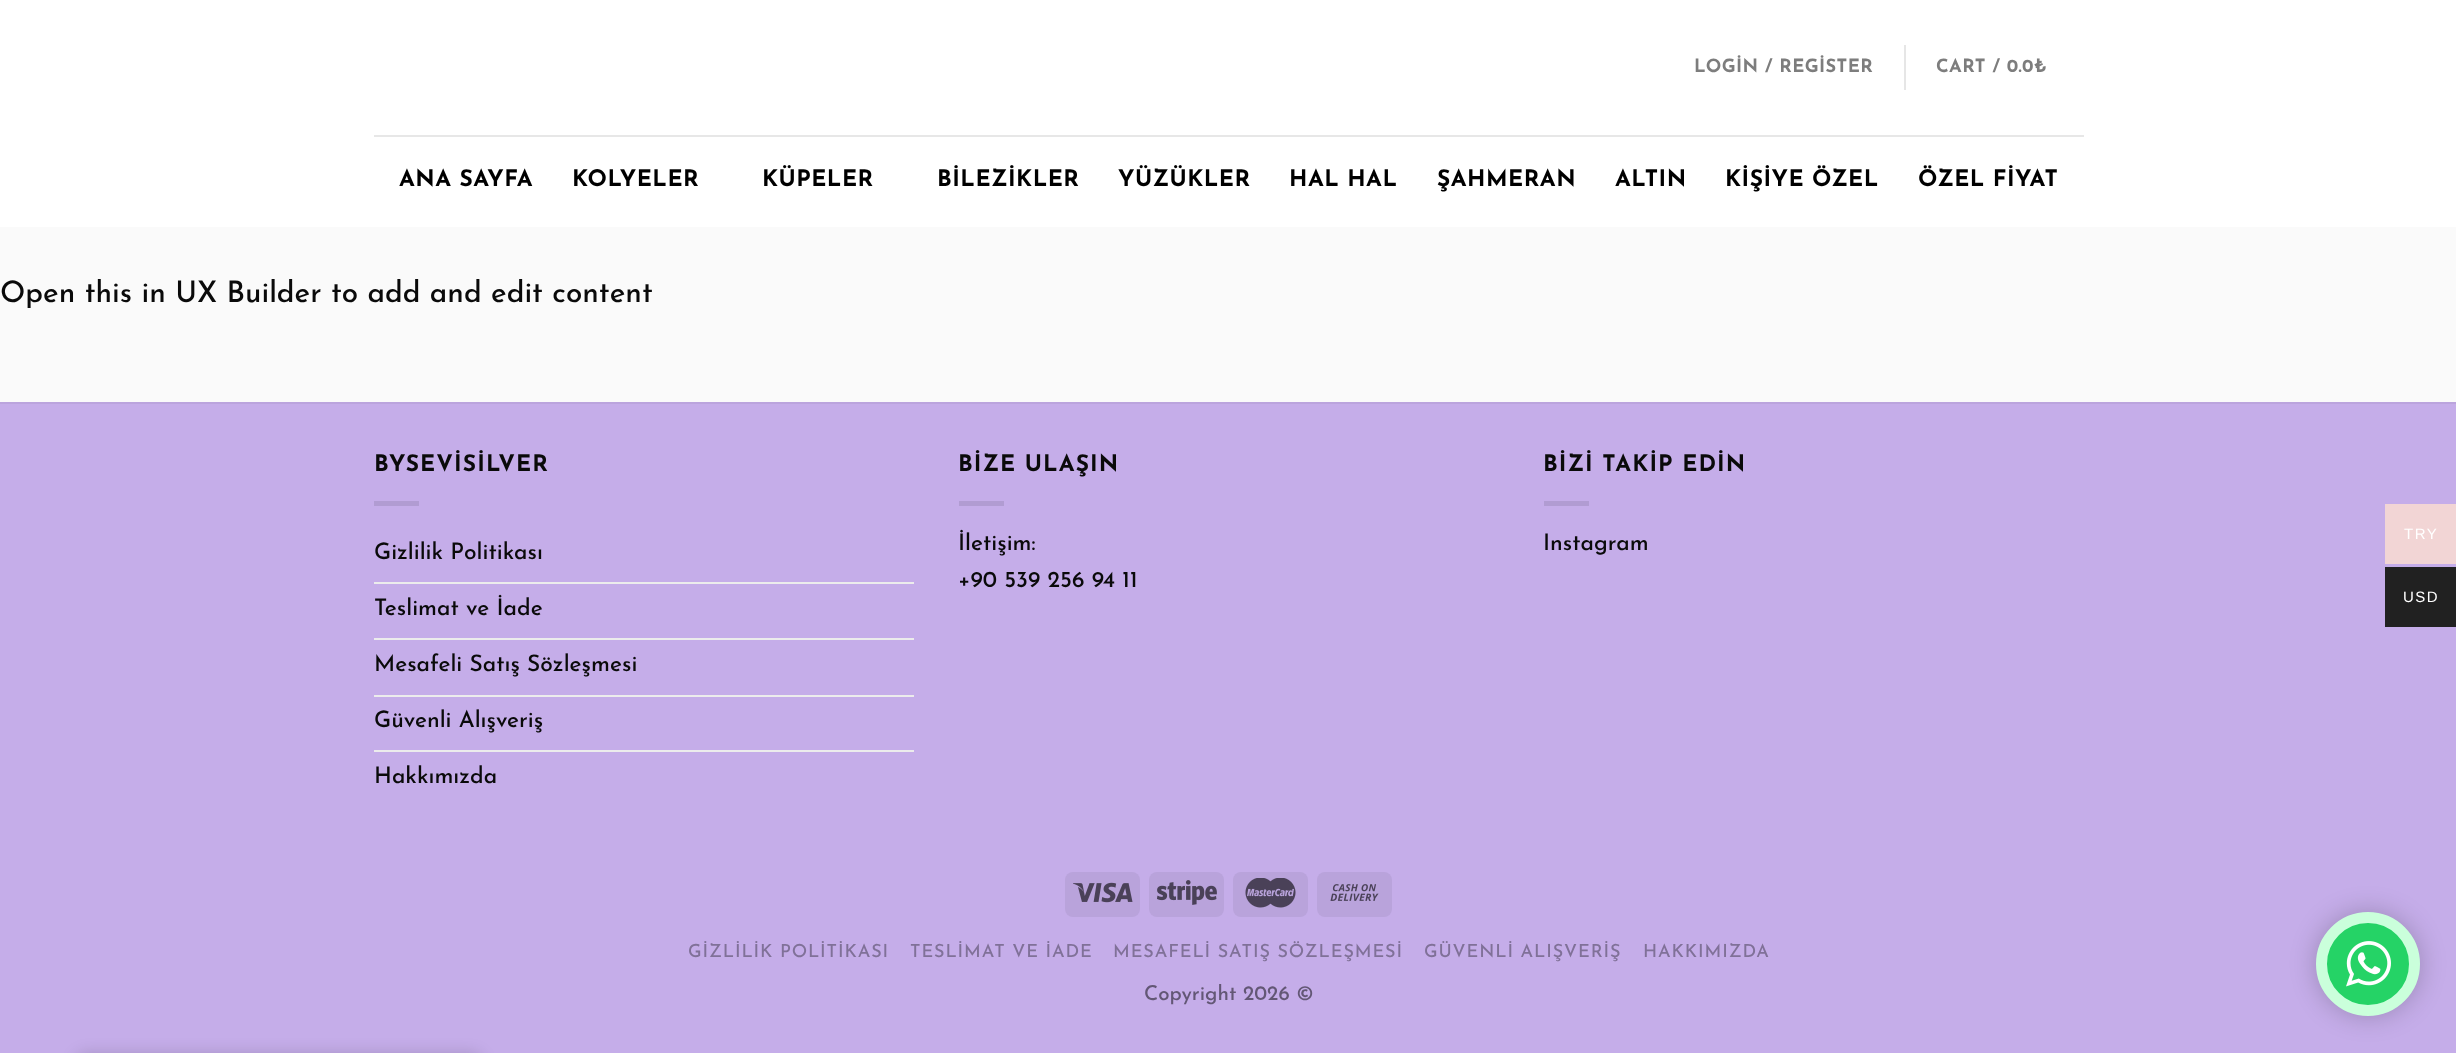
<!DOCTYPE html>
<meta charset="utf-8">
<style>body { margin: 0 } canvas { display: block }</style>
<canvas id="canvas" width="2456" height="1053"></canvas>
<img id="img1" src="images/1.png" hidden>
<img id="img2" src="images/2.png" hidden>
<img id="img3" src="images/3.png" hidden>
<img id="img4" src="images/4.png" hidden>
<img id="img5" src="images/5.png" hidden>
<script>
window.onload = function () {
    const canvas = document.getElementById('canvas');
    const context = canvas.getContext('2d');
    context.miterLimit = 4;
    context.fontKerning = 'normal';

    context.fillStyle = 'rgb(197, 173, 233)';
    context.fillRect(0, 0, 2456, 1053);
    context.fillStyle = 'rgb(255, 255, 255)';
    context.fillRect(0, 0, 2456, 227);
    context.fillStyle = 'rgb(230, 230, 230)';
    context.fillRect(1904, 45, 2, 45);
    context.fillStyle = 'rgb(231, 231, 231)';
    context.fillRect(374, 135, 1710, 2);
    context.fillStyle = 'rgb(250, 250, 250)';
    context.fillRect(0, 227, 2456, 175);
    context.fillStyle = 'rgb(187, 164, 221)';
    context.fillRect(0, 402, 2456, 2);
    context.fillStyle = 'rgb(177, 156, 210)';
    context.fillRect(374, 501, 45, 5);
    context.fillStyle = 'rgb(236, 236, 236)';
    context.fillRect(374, 582, 540, 2);
    context.fillRect(374, 638, 540, 2);
    context.fillRect(374, 695, 540, 2);
    context.fillRect(374, 750, 540, 2);
    context.fillStyle = 'rgb(177, 156, 210)';
    context.fillRect(959, 501, 45, 5);
    context.fillRect(1544, 501, 45, 5);
    context.fillStyle = 'rgb(185, 163, 219)';
    context.beginPath();
    context.roundRect(1065, 872, 75, 45, 8);
    context.fill();
    context.drawImage(document.getElementById('img1'), 1073, 882, 60, 21);
    context.beginPath();
    context.roundRect(1149, 872, 75, 45, 8);
    context.fill();
    context.drawImage(document.getElementById('img2'), 1157, 880, 60, 25);
    context.beginPath();
    context.roundRect(1233, 872, 75, 45, 8);
    context.fill();
    context.drawImage(document.getElementById('img3'), 1245, 878, 51, 30);
    context.beginPath();
    context.roundRect(1317, 872, 75, 45, 8);
    context.fill();
    context.drawImage(document.getElementById('img4'), 1330, 884, 49, 17);
    context.fillStyle = 'rgb(242, 213, 213)';
    context.fillRect(2385, 504, 71, 60);
    context.fillStyle = 'rgb(33, 33, 33)';
    context.fillRect(2385, 567, 71, 60);
    context.fillStyle = 'rgba(0, 0, 0, 0.15)';
    context.filter = 'blur(7.5px)';
    context.beginPath();
    context.roundRect(75, 1053, 408, 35, 12);
    context.fill();
    context.filter = 'none';
    context.fillStyle = 'rgba(0, 0, 0, 0.22)';
    context.filter = 'blur(13px)';
    context.beginPath();
    context.roundRect(2316, 912, 104, 104, 52);
    context.fill();
    context.filter = 'none';
    context.fillStyle = 'rgb(37, 211, 102)';
    context.beginPath();
    context.arc(2368, 964, 46.5, 0, 2 * Math.PI);
    context.fill();
    context.strokeStyle = 'rgb(202, 255, 219)';
    context.lineWidth = 11;
    context.stroke();
    context.drawImage(document.getElementById('img5'), 2346, 941, 45, 46);
    context.letterSpacing = '0.4px';
    context.font = 'bold 18.25px Josefin Sans';
    context.fillStyle = 'rgb(125, 125, 125)';
    context.fillText('LOGİN / REGİSTER', 1694, 72);
    context.fillText('CART / 0.0₺', 1936, 72);
    context.letterSpacing = '0.5px';
    context.font = 'bold 22.75px Josefin Sans';
    context.fillStyle = 'rgb(0, 0, 0)';
    context.fillText('ANA SAYFA', 399, 186);
    context.fillText('KOLYELER', 572, 186);
    context.fillText('KÜPELER', 762, 186);
    context.fillText('BİLEZİKLER', 937, 186);
    context.fillText('YÜZÜKLER', 1118, 186);
    context.fillText('HAL HAL', 1289, 186);
    context.fillText('ŞAHMERAN', 1437, 186);
    context.fillText('ALTIN', 1615, 186);
    context.fillText('KİŞİYE ÖZEL', 1725, 186);
    context.fillText('ÖZEL FİYAT', 1918, 186);
    context.letterSpacing = '0px';
    context.font = '500 29.6px Josefin Sans';
    context.fillStyle = 'rgb(10, 10, 10)';
    context.fillText('Open this in UX Builder to add and edit content', 0, 302);
    context.letterSpacing = '1.1px';
    context.font = 'bold 22.75px Josefin Sans';
    context.fillText('BYSEVİSİLVER', 374, 471);
    context.letterSpacing = '0px';
    context.font = '500 22.75px Josefin Sans';
    context.fillText('Gizlilik Politikası', 374, 559);
    context.fillText('Teslimat ve İade', 374, 615);
    context.fillText('Mesafeli Satış Sözleşmesi', 374, 671);
    context.fillText('Güvenli Alışveriş', 374, 727);
    context.fillText('Hakkımızda', 374, 783);
    context.letterSpacing = '1.1px';
    context.font = 'bold 22.75px Josefin Sans';
    context.fillText('BİZE ULAŞIN', 958, 471);
    context.letterSpacing = '0px';
    context.font = '500 22.75px Josefin Sans';
    context.fillText('İletişim:', 958, 550);
    context.fillText('+90 539 256 94 11', 958, 587);
    context.letterSpacing = '1.1px';
    context.font = 'bold 22.75px Josefin Sans';
    context.fillText('BİZİ TAKİP EDİN', 1543, 471);
    context.letterSpacing = '0px';
    context.font = '500 22.75px Josefin Sans';
    context.fillText('Instagram', 1543, 550);
    context.letterSpacing = '0.9px';
    context.font = '500 18px Josefin Sans';
    context.fillStyle = 'rgb(128, 113, 152)';
    context.fillText('GİZLİLİK POLİTİKASI', 688, 957);
    context.fillText('TESLİMAT VE İADE', 910, 957);
    context.fillText('MESAFELİ SATIŞ SÖZLEŞMESİ', 1113, 957);
    context.fillText('GÜVENLİ ALIŞVERİŞ', 1424, 957);
    context.fillText('HAKKIMIZDA', 1643, 957);
    context.letterSpacing = '0px';
    context.font = '500 20.5px Josefin Sans';
    context.fillStyle = 'rgb(99, 87, 117)';
    context.fillText('Copyright 2026 ©', 1144, 1000);
    context.letterSpacing = '1.5px';
    context.font = '15px Liberation Sans';
    context.fillStyle = 'rgb(255, 255, 255)';
    context.fillText('TRY', 2404, 539);
    context.fillText('USD', 2403, 602);
};
</script>
